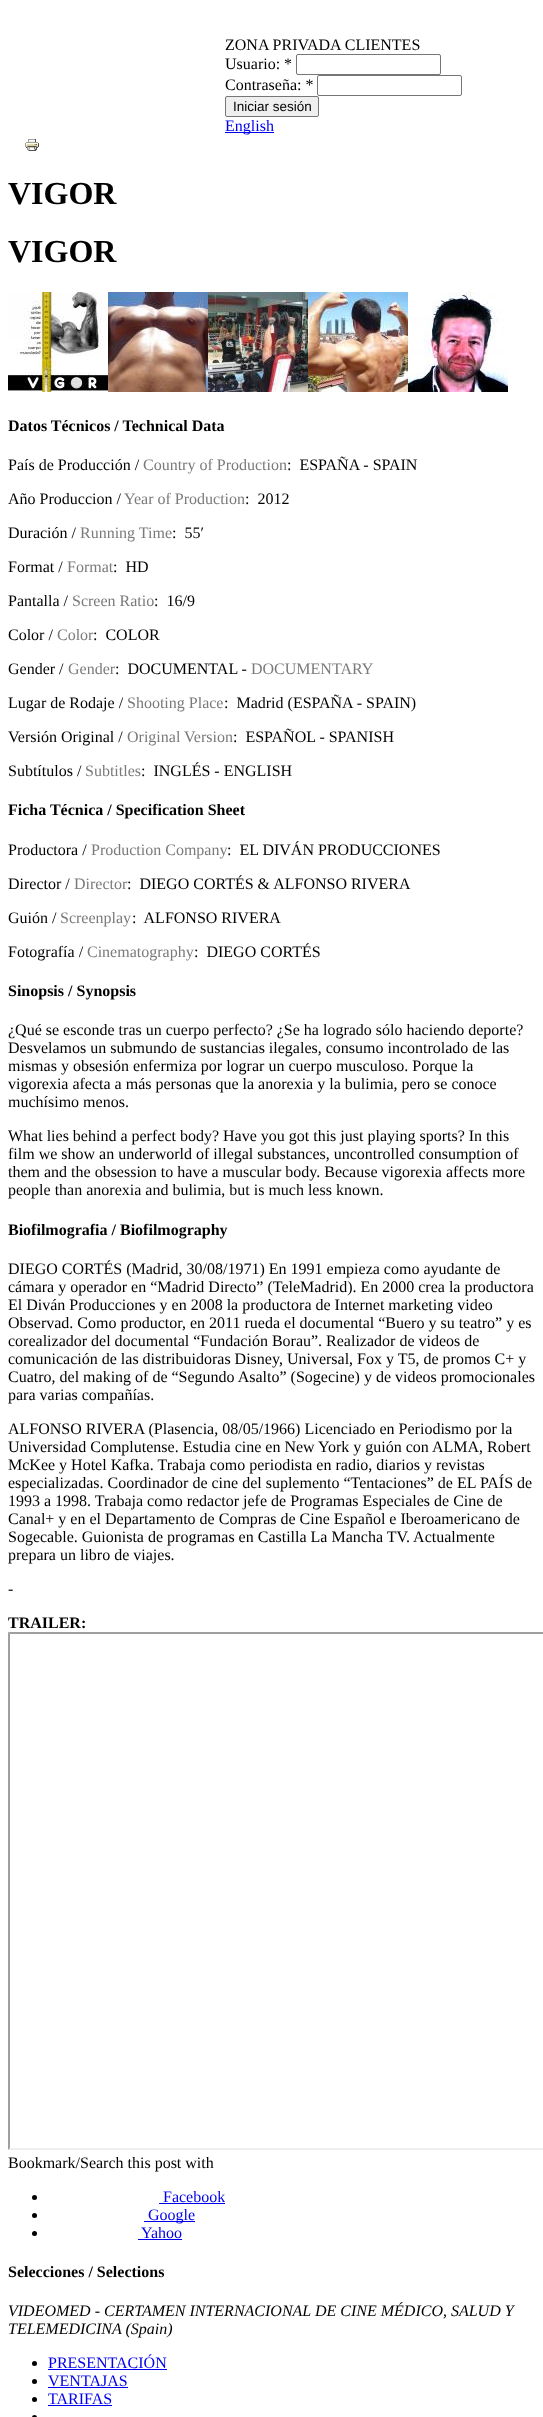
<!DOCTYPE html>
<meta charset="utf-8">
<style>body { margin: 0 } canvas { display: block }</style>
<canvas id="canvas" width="543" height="2417"></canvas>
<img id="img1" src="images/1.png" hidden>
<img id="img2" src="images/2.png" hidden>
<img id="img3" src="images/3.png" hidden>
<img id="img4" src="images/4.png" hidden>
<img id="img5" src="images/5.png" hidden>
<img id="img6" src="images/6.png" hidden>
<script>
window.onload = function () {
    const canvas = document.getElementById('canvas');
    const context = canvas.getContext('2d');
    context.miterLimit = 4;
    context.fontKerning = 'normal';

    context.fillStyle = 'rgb(255, 255, 255)';
    context.fillRect(0, 0, 543, 2417);
    context.beginPath();
    context.roundRect(296.5, 54.5, 144, 20, 1.5);
    context.strokeStyle = 'rgb(118, 118, 118)';
    context.stroke();
    context.beginPath();
    context.roundRect(317.5, 75.5, 144, 20, 1.5);
    context.stroke();
    context.fillStyle = 'rgb(239, 239, 239)';
    context.beginPath();
    context.roundRect(225.5, 96.5, 93, 20, 1.5);
    context.fill();
    context.stroke();
    context.fillStyle = 'rgb(0, 0, 238)';
    context.fillRect(225, 132, 49, 1);
    context.drawImage(document.getElementById('img1'), 25, 139, 14, 12);
    context.drawImage(document.getElementById('img2'), 8, 292, 100, 100);
    context.drawImage(document.getElementById('img3'), 108, 292, 100, 100);
    context.drawImage(document.getElementById('img4'), 208, 292, 100, 100);
    context.drawImage(document.getElementById('img5'), 308, 292, 100, 100);
    context.drawImage(document.getElementById('img6'), 408, 292, 100, 100);
    context.fillStyle = 'rgb(159, 159, 159)';
    context.beginPath();
    context.moveTo(8, 1632);
    context.lineTo(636, 1632);
    context.lineTo(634, 1634);
    context.lineTo(10, 1634);
    context.closePath();
    context.fill();
    context.fillStyle = 'rgb(238, 238, 238)';
    context.beginPath();
    context.moveTo(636, 2150);
    context.lineTo(8, 2150);
    context.lineTo(10, 2148);
    context.lineTo(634, 2148);
    context.closePath();
    context.fill();
    context.fillStyle = 'rgb(159, 159, 159)';
    context.beginPath();
    context.moveTo(8, 2150);
    context.lineTo(8, 1632);
    context.lineTo(10, 1634);
    context.lineTo(10, 2148);
    context.closePath();
    context.fill();
    context.fillStyle = 'rgb(0, 0, 0)';
    context.beginPath();
    context.arc(34.5, 2197.5, 2.5, 0, 2 * Math.PI);
    context.fill();
    context.fillStyle = 'rgb(0, 0, 238)';
    context.fillRect(159, 2203, 66, 1);
    context.fillStyle = 'rgb(0, 0, 0)';
    context.beginPath();
    context.arc(34.5, 2215.5, 2.5, 0, 2 * Math.PI);
    context.fill();
    context.fillStyle = 'rgb(0, 0, 238)';
    context.fillRect(144, 2221, 51, 1);
    context.fillStyle = 'rgb(0, 0, 0)';
    context.beginPath();
    context.arc(34.5, 2233.5, 2.5, 0, 2 * Math.PI);
    context.fill();
    context.fillStyle = 'rgb(0, 0, 238)';
    context.fillRect(138, 2239, 44, 1);
    context.fillStyle = 'rgb(0, 0, 0)';
    context.beginPath();
    context.arc(34.5, 2363.5, 2.5, 0, 2 * Math.PI);
    context.fill();
    context.fillStyle = 'rgb(0, 0, 238)';
    context.fillRect(48, 2369, 119, 1);
    context.fillStyle = 'rgb(0, 0, 0)';
    context.beginPath();
    context.arc(34.5, 2381.5, 2.5, 0, 2 * Math.PI);
    context.fill();
    context.fillStyle = 'rgb(0, 0, 238)';
    context.fillRect(48, 2387, 80, 1);
    context.fillStyle = 'rgb(0, 0, 0)';
    context.beginPath();
    context.arc(34.5, 2399.5, 2.5, 0, 2 * Math.PI);
    context.fill();
    context.fillStyle = 'rgb(0, 0, 238)';
    context.fillRect(48, 2405, 64, 1);
    context.fillStyle = 'rgb(0, 0, 0)';
    context.beginPath();
    context.arc(34.5, 2417.5, 2.5, 0, 2 * Math.PI);
    context.fill();
    context.font = '16px Liberation Serif';
    context.fillText('ZONA PRIVADA CLIENTES', 225, 50);
    context.fillText('Usuario: *', 225, 69);
    context.fillText('Contraseña: *', 225, 90);
    context.font = '13.5px Liberation Sans';
    context.fillText('Iniciar sesión', 233, 111);
    context.font = '16px Liberation Serif';
    context.fillStyle = 'rgb(0, 0, 238)';
    context.fillText('English', 225, 131);
    context.font = 'bold 32px Liberation Serif';
    context.fillStyle = 'rgb(0, 0, 0)';
    context.fillText('VIGOR', 8, 204);
    context.fillText('VIGOR', 8, 262);
    context.font = 'bold 16px Liberation Serif';
    context.fillText('Datos Técnicos / Technical Data', 8, 431);
    context.font = '16px Liberation Serif';
    context.fillText('País de Producción /', 8, 470);
    context.fillStyle = 'rgb(122, 122, 122)';
    context.fillText('Country of Production', 143, 470);
    context.fillStyle = 'rgb(0, 0, 0)';
    context.fillText(':  ESPAÑA - SPAIN', 287, 470);
    context.fillText('Año Produccion /', 8, 504);
    context.fillStyle = 'rgb(122, 122, 122)';
    context.fillText('Year of Production', 124, 504);
    context.fillStyle = 'rgb(0, 0, 0)';
    context.fillText(':  2012', 245, 504);
    context.fillText('Duración /', 8, 538);
    context.fillStyle = 'rgb(122, 122, 122)';
    context.fillText('Running Time', 80, 538);
    context.fillStyle = 'rgb(0, 0, 0)';
    context.fillText(':  55′', 172, 538);
    context.fillText('Format /', 8, 572);
    context.fillStyle = 'rgb(122, 122, 122)';
    context.fillText('Format', 67, 572);
    context.fillStyle = 'rgb(0, 0, 0)';
    context.fillText(':  HD', 113, 572);
    context.fillText('Pantalla /', 8, 606);
    context.fillStyle = 'rgb(122, 122, 122)';
    context.fillText('Screen Ratio', 72, 606);
    context.fillStyle = 'rgb(0, 0, 0)';
    context.fillText(':  16/9', 154, 606);
    context.fillText('Color /', 8, 640);
    context.fillStyle = 'rgb(122, 122, 122)';
    context.fillText('Color', 57, 640);
    context.fillStyle = 'rgb(0, 0, 0)';
    context.fillText(':  COLOR', 93, 640);
    context.fillText('Gender /', 8, 674);
    context.fillStyle = 'rgb(122, 122, 122)';
    context.fillText('Gender', 68, 674);
    context.fillStyle = 'rgb(0, 0, 0)';
    context.fillText(':  DOCUMENTAL -', 115, 674);
    context.fillStyle = 'rgb(122, 122, 122)';
    context.fillText('DOCUMENTARY', 251, 674);
    context.fillStyle = 'rgb(0, 0, 0)';
    context.fillText('Lugar de Rodaje /', 8, 708);
    context.fillStyle = 'rgb(122, 122, 122)';
    context.fillText('Shooting Place', 127, 708);
    context.fillStyle = 'rgb(0, 0, 0)';
    context.fillText(':  Madrid (ESPAÑA - SPAIN)', 224, 708);
    context.fillText('Versión Original /', 8, 742);
    context.fillStyle = 'rgb(122, 122, 122)';
    context.fillText('Original Version', 127, 742);
    context.fillStyle = 'rgb(0, 0, 0)';
    context.fillText(':  ESPAÑOL - SPANISH', 233, 742);
    context.fillText('Subtítulos /', 8, 776);
    context.fillStyle = 'rgb(122, 122, 122)';
    context.fillText('Subtitles', 85, 776);
    context.fillStyle = 'rgb(0, 0, 0)';
    context.fillText(':  INGLÉS - ENGLISH', 141, 776);
    context.font = 'bold 16px Liberation Serif';
    context.fillText('Ficha Técnica / Specification Sheet', 8, 815);
    context.font = '16px Liberation Serif';
    context.fillText('Productora /', 8, 855);
    context.fillStyle = 'rgb(122, 122, 122)';
    context.fillText('Production Company', 91, 855);
    context.fillStyle = 'rgb(0, 0, 0)';
    context.fillText(':  EL DIVÁN PRODUCCIONES', 227, 855);
    context.fillText('Director /', 8, 889);
    context.fillStyle = 'rgb(122, 122, 122)';
    context.fillText('Director', 74, 889);
    context.fillStyle = 'rgb(0, 0, 0)';
    context.fillText(':  DIEGO CORTÉS & ALFONSO RIVERA', 127, 889);
    context.fillText('Guión /', 8, 923);
    context.fillStyle = 'rgb(122, 122, 122)';
    context.fillText('Screenplay', 60, 923);
    context.fillStyle = 'rgb(0, 0, 0)';
    context.fillText(':  ALFONSO RIVERA', 132, 923);
    context.fillText('Fotografía /', 8, 957);
    context.fillStyle = 'rgb(122, 122, 122)';
    context.fillText('Cinematography', 87, 957);
    context.fillStyle = 'rgb(0, 0, 0)';
    context.fillText(':  DIEGO CORTÉS', 194, 957);
    context.font = 'bold 16px Liberation Serif';
    context.fillText('Sinopsis / Synopsis', 8, 996);
    context.font = '16px Liberation Serif';
    context.fillText('¿Qué se esconde tras un cuerpo perfecto? ¿Se ha logrado sólo haciendo deporte?', 8, 1035);
    context.fillText('Desvelamos un submundo de sustancias ilegales, consumo incontrolado de las', 8, 1053);
    context.fillText('mismas y obsesión enfermiza por lograr un cuerpo musculoso. Porque la', 8, 1071);
    context.fillText('vigorexia afecta a más personas que la anorexia y la bulimia, pero se conoce', 8, 1089);
    context.fillText('muchísimo menos.', 8, 1107);
    context.fillText('What lies behind a perfect body? Have you got this just playing sports? In this', 8, 1141);
    context.fillText('film we show an underworld of illegal substances, uncontrolled consumption of', 8, 1159);
    context.fillText('them and the obsession to have a muscular body. Because vigorexia affects more', 8, 1177);
    context.fillText('people than anorexia and bulimia, but is much less known.', 8, 1195);
    context.font = 'bold 16px Liberation Serif';
    context.fillText('Biofilmografia / Biofilmography', 8, 1235);
    context.font = '16px Liberation Serif';
    context.fillText('DIEGO CORTÉS (Madrid, 30/08/1971) En 1991 empieza como ayudante de', 8, 1274);
    context.fillText('cámara y operador en “Madrid Directo” (TeleMadrid). En 2000 crea la productora', 8, 1292);
    context.fillText('El Diván Producciones y en 2008 la productora de Internet marketing video', 8, 1310);
    context.fillText('Observad. Como productor, en 2011 rueda el documental “Buero y su teatro” y es', 8, 1328);
    context.fillText('corealizador del documental “Fundación Borau”. Realizador de videos de', 8, 1346);
    context.fillText('comunicación de las distribuidoras Disney, Universal, Fox y T5, de promos C+ y', 8, 1364);
    context.fillText('Cuatro, del making of de “Segundo Asalto” (Sogecine) y de videos promocionales', 8, 1382);
    context.fillText('para varias compañías.', 8, 1400);
    context.fillText('ALFONSO RIVERA (Plasencia, 08/05/1966) Licenciado en Periodismo por la', 8, 1434);
    context.fillText('Universidad Complutense. Estudia cine en New York y guión con ALMA, Robert', 8, 1452);
    context.fillText('McKee y Hotel Kafka. Trabaja como periodista en radio, diarios y revistas', 8, 1470);
    context.fillText('especializadas. Coordinador de cine del suplemento “Tentaciones” de EL PAÍS de', 8, 1488);
    context.fillText('1993 a 1998. Trabaja como redactor jefe de Programas Especiales de Cine de', 8, 1506);
    context.fillText('Canal+ y en el Departamento de Compras de Cine Español e Iberoamericano de', 8, 1524);
    context.fillText('Sogecable. Guionista de programas en Castilla La Mancha TV. Actualmente', 8, 1542);
    context.fillText('prepara un libro de viajes.', 8, 1560);
    context.fillText('-', 8, 1594);
    context.font = 'bold 16px Liberation Serif';
    context.fillText('TRAILER:', 8, 1628);
    context.font = '16px Liberation Serif';
    context.fillText('Bookmark/Search this post with', 8, 2168);
    context.fillStyle = 'rgb(0, 0, 238)';
    context.fillText('Facebook', 163, 2202);
    context.fillText('Google', 148, 2220);
    context.fillText('Yahoo', 141, 2238);
    context.font = 'bold 16px Liberation Serif';
    context.fillStyle = 'rgb(0, 0, 0)';
    context.fillText('Selecciones / Selections', 8, 2277);
    context.font = 'italic 16px Liberation Serif';
    context.fillText('VIDEOMED - CERTAMEN INTERNACIONAL DE CINE MÉDICO, SALUD Y', 8, 2316);
    context.fillText('TELEMEDICINA (Spain)', 8, 2334);
    context.font = '16px Liberation Serif';
    context.fillStyle = 'rgb(0, 0, 238)';
    context.fillText('PRESENTACIÓN', 48, 2368);
    context.fillText('VENTAJAS', 48, 2386);
    context.fillText('TARIFAS', 48, 2404);
};
</script>
